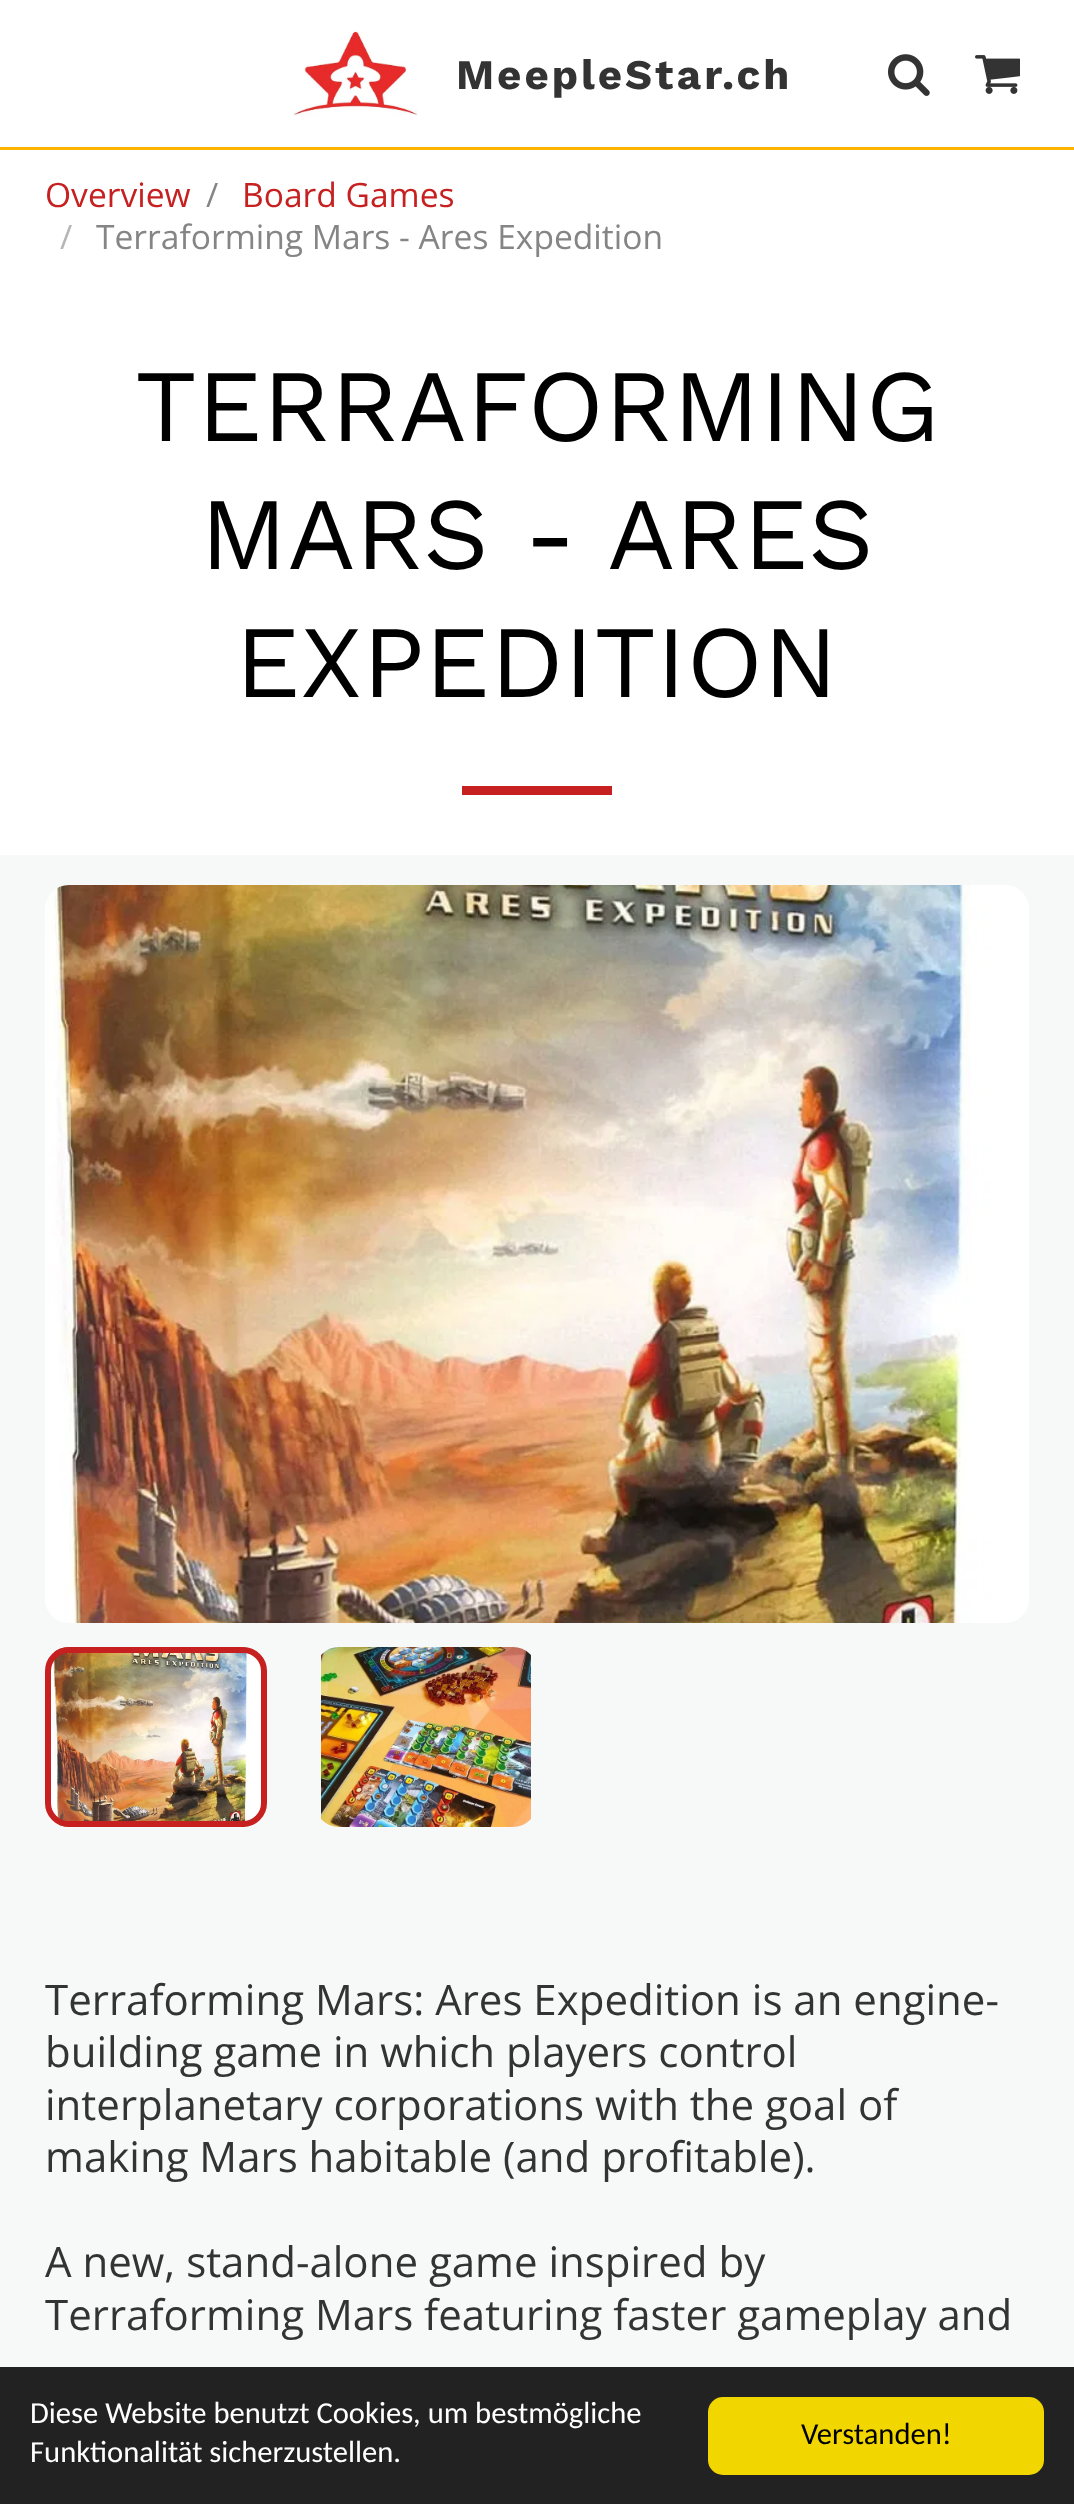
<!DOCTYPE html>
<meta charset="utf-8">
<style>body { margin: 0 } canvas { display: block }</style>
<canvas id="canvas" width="1074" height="2504"></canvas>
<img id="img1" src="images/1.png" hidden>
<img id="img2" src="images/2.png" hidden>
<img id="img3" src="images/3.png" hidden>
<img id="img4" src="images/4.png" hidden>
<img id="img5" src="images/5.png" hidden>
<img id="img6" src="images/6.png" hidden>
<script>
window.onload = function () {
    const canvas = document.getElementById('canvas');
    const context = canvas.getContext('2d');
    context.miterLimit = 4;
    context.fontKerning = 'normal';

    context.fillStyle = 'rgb(247, 249, 248)';
    context.fillRect(0, 0, 1074, 2504);
    context.fillStyle = 'rgb(255, 255, 255)';
    context.fillRect(0, 0, 1074, 855);
    context.fillStyle = 'rgb(255, 180, 0)';
    context.fillRect(0, 147, 1074, 3);
    context.drawImage(document.getElementById('img1'), 293, 30, 125, 86);
    context.drawImage(document.getElementById('img2'), 888, 54, 42, 42);
    context.drawImage(document.getElementById('img3'), 975, 55, 45, 39);
    context.fillStyle = 'rgb(198, 32, 32)';
    context.fillRect(462, 786, 150, 9);
    context.drawImage(document.getElementById('img4'), 45, 885, 984, 738);
    context.drawImage(document.getElementById('img5'), 51, 1647, 210, 180);
    context.beginPath();
    context.roundRect(48, 1650, 216, 174, 21);
    context.strokeStyle = 'rgb(198, 32, 32)';
    context.lineWidth = 6;
    context.stroke();
    context.drawImage(document.getElementById('img6'), 321, 1647, 210, 180);
    context.fillStyle = 'rgb(34, 34, 34)';
    context.fillRect(0, 2367, 1074, 137);
    context.fillStyle = 'rgb(241, 214, 0)';
    context.beginPath();
    context.roundRect(708, 2397, 336, 78, 15);
    context.fill();
    context.letterSpacing = '3px';
    context.font = 'bold 42px Work Sans';
    context.fillStyle = 'rgb(51, 51, 51)';
    context.fillText('MeepleStar.ch', 456, 89);
    context.letterSpacing = '0px';
    context.font = '33.6px Open Sans';
    context.fillStyle = 'rgb(198, 32, 32)';
    context.fillText('Overview', 45, 207);
    context.fillStyle = 'rgb(133, 133, 133)';
    context.fillText('/', 206, 207);
    context.fillStyle = 'rgb(198, 32, 32)';
    context.fillText('Board Games', 242, 207);
    context.fillStyle = 'rgb(182, 182, 182)';
    context.fillText('/', 60, 249);
    context.fillStyle = 'rgb(133, 133, 133)';
    context.fillText('Terraforming Mars - Ares Expedition', 96, 249);
    context.font = '102.5px Work Sans';
    context.fillStyle = 'rgb(0, 0, 0)';
    context.fillText('TERRAFORMING', 135, 441);
    context.fillText('MARS - ARES', 200, 569);
    context.fillText('EXPEDITION', 235, 697);
    context.font = '42px Open Sans';
    context.fillStyle = 'rgb(51, 51, 51)';
    context.fillText('Terraforming Mars: Ares Expedition is an engine-', 45, 2015);
    context.fillText('building game in which players control', 45, 2067);
    context.fillText('interplanetary corporations with the goal of', 45, 2120);
    context.fillText('making Mars habitable (and profitable).', 45, 2172);
    context.fillText('A new, stand-alone game inspired by', 45, 2277);
    context.fillText('Terraforming Mars featuring faster gameplay and', 45, 2330);
    context.font = '30.6px Carlito';
    context.fillStyle = 'rgb(255, 255, 255)';
    context.fillText('Diese Website benutzt Cookies, um bestmögliche', 30, 2423);
    context.fillText('Funktionalität sicherzustellen.', 30, 2462);
    context.fillStyle = 'rgb(0, 0, 0)';
    context.fillText('Verstanden!', 801, 2444);
};
</script>
